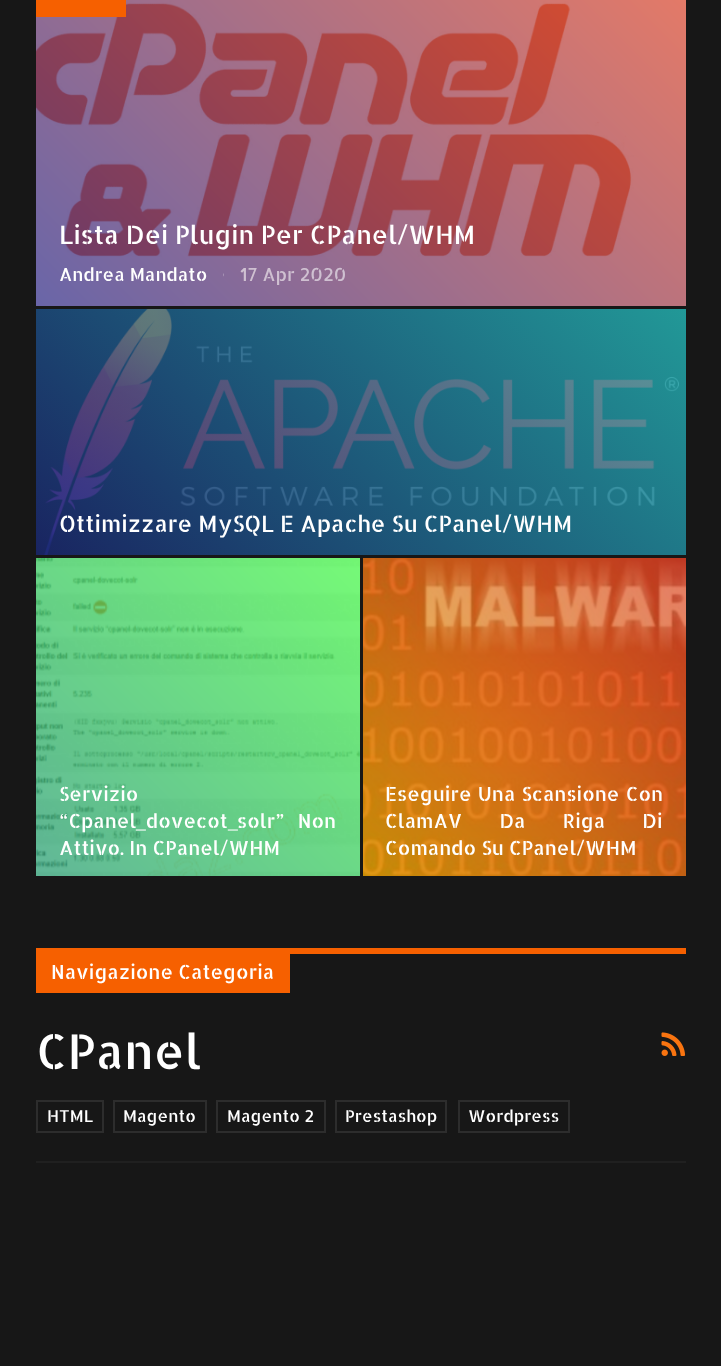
<!DOCTYPE html>
<meta charset="utf-8">
<style>body { margin: 0 } canvas { display: block }</style>
<canvas id="canvas" width="721" height="1366"></canvas>
<img id="img1" src="images/1.png" hidden>
<img id="img2" src="images/2.png" hidden>
<img id="img3" src="images/3.png" hidden>
<img id="img4" src="images/4.png" hidden>
<img id="img5" src="images/5.png" hidden>
<img id="img6" src="images/6.png" hidden>
<script>
window.onload = function () {
    const canvas = document.getElementById('canvas');
    const context = canvas.getContext('2d');
    context.miterLimit = 4;
    context.fontKerning = 'normal';
    let gradient;

    context.fillStyle = 'rgb(23, 23, 23)';
    context.fillRect(0, 0, 721, 1366);
    context.drawImage(document.getElementById('img1'), 36, 0, 650, 306);
    context.fillStyle = 'rgb(246, 96, 0)';
    context.fillRect(36, 0, 90, 17);
    context.drawImage(document.getElementById('img2'), 223, 273, 1, 4);
    context.drawImage(document.getElementById('img3'), 44, 309, 635, 246);
    gradient = context.createLinearGradient(135, 658, 587, 206);
    gradient.addColorStop(0, 'rgba(26, 41, 128, 0.7)');
    gradient.addColorStop(1, 'rgba(38, 208, 206, 0.7)');
    context.fillStyle = gradient;
    context.fillRect(36, 309, 650, 246);
    context.drawImage(document.getElementById('img4'), 36, 558, 324, 318);
    context.drawImage(document.getElementById('img5'), 363, 558, 323, 318);
    context.fillStyle = 'rgb(32, 32, 32)';
    context.fillRect(36, 1161, 650, 2);
    context.fillStyle = 'rgb(246, 96, 0)';
    context.fillRect(290, 948, 396, 6);
    context.fillRect(36, 948, 254, 45);
    context.drawImage(document.getElementById('img6'), 661, 1032, 25, 24);
    context.strokeStyle = 'rgb(45, 45, 45)';
    context.lineWidth = 2;
    context.strokeRect(37, 1101, 66, 31);
    context.strokeRect(114, 1101, 92, 31);
    context.strokeRect(217, 1101, 108, 31);
    context.strokeRect(336, 1101, 110, 31);
    context.strokeRect(459, 1101, 110, 31);
    context.font = '25.25px Allerta Stencil';
    context.fillStyle = 'rgb(255, 255, 255)';
    context.fillText('Lista Dei Plugin Per CPanel/WHM', 59, 244);
    context.font = '18px Allerta Stencil';
    context.fillText('Andrea Mandato', 59, 281);
    context.fillStyle = 'rgb(207, 192, 209)';
    context.fillText('17 Apr 2020', 240, 281);
    context.font = '22.7px Allerta Stencil';
    context.fillStyle = 'rgb(255, 255, 255)';
    context.fillText('Ottimizzare MySQL E Apache Su CPanel/WHM', 59, 532);
    context.font = '19.5px Allerta Stencil';
    context.fillText('Servizio', 59, 801);
    context.fillText('“Cpanel', 59, 828);
    context.fillText('dovecot', 146, 828);
    context.wordSpacing = '8px';
    context.fillText('solr” Non', 237, 828);
    context.wordSpacing = '0px';
    context.font = '19.5px Liberation Serif';
    context.fillText('_', 136, 828);
    context.fillText('_', 228, 828);
    context.font = '19.5px Allerta Stencil';
    context.fillText('Attivo. In CPanel/WHM', 59, 855);
    context.wordSpacing = '1px';
    context.fillText('Eseguire Una Scansione Con', 385, 801);
    context.wordSpacing = '32px';
    context.fillText('ClamAV Da Riga Di', 385, 828);
    context.wordSpacing = '0px';
    context.fillText('Comando Su CPanel/WHM', 385, 855);
    context.fillText('Navigazione Categoria', 51, 979);
    context.font = '48px Allerta Stencil';
    context.fillText('CPanel', 36, 1069);
    context.font = '16.5px Allerta Stencil';
    context.fillText('HTML', 47, 1122);
    context.fillText('Magento', 123, 1122);
    context.fillText('Magento 2', 227, 1122);
    context.fillText('Prestashop', 345, 1122);
    context.fillText('Wordpress', 468, 1122);
};
</script>
